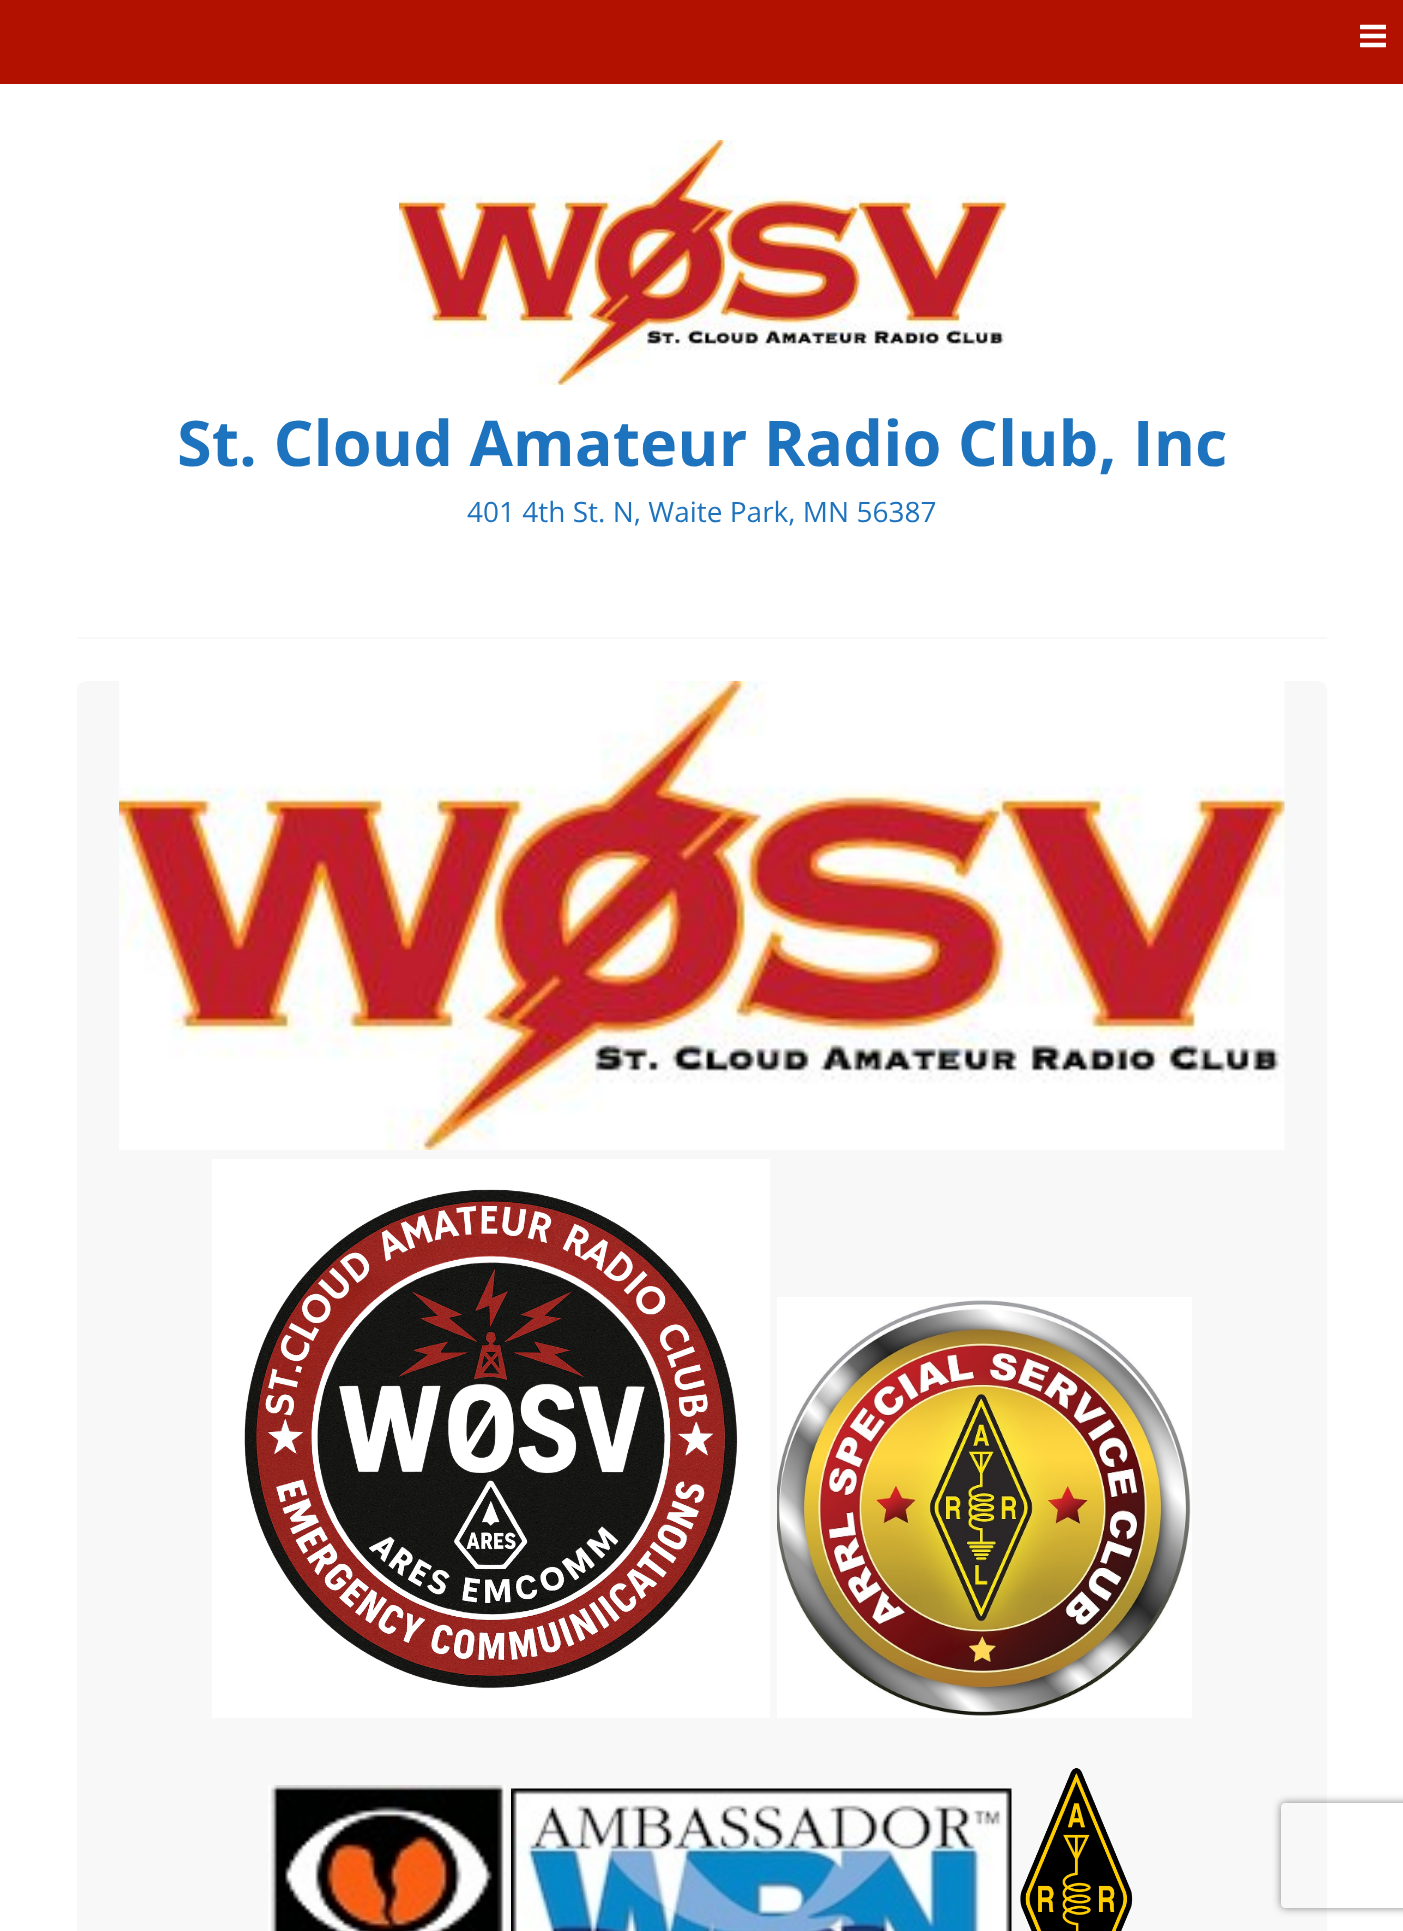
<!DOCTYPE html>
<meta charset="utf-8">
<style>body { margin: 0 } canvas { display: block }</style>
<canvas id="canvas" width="1403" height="1931"></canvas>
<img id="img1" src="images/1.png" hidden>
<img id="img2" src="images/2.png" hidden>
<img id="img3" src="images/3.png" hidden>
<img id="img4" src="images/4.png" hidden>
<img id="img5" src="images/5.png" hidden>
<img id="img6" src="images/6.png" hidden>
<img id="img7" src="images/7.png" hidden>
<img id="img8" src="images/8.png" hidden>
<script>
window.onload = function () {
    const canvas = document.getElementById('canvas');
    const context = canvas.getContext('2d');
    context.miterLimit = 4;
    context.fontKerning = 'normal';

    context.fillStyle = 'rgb(255, 255, 255)';
    context.fillRect(0, 0, 1403, 1931);
    context.fillStyle = 'rgb(178, 17, 0)';
    context.fillRect(0, 0, 1403, 84);
    context.drawImage(document.getElementById('img1'), 1360, 24, 26, 24);
    context.drawImage(document.getElementById('img2'), 399, 140, 608, 245);
    context.fillStyle = 'rgb(248, 248, 248)';
    context.fillRect(77, 637, 1250, 2);
    context.beginPath();
    context.roundRect(77, 681, 1250, 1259, 9);
    context.fill();
    context.drawImage(document.getElementById('img3'), 119, 680, 1166, 470);
    context.drawImage(document.getElementById('img4'), 212, 1159, 558, 559);
    context.drawImage(document.getElementById('img5'), 777, 1297, 415, 421);
    context.drawImage(document.getElementById('img6'), 268, 1785, 238, 146);
    context.drawImage(document.getElementById('img7'), 511, 1788, 501, 143);
    context.drawImage(document.getElementById('img8'), 1020, 1768, 113, 163);
    context.save();
    context.beginPath();
    context.moveTo(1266, 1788);
    context.lineTo(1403, 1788);
    context.lineTo(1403, 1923);
    context.lineTo(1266, 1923);
    context.closePath();
    context.moveTo(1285, 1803);
    context.lineTo(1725, 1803);
    context.bezierCurveTo(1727, 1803, 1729, 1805, 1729, 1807);
    context.lineTo(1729, 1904);
    context.bezierCurveTo(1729, 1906, 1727, 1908, 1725, 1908);
    context.lineTo(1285, 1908);
    context.bezierCurveTo(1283, 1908, 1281, 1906, 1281, 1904);
    context.lineTo(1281, 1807);
    context.bezierCurveTo(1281, 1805, 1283, 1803, 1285, 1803);
    context.closePath();
    context.clip('evenodd');
    context.fillStyle = 'rgb(128, 128, 128)';
    context.filter = 'blur(4.5px)';
    context.beginPath();
    context.roundRect(1281, 1803, 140, 105, 4);
    context.fill();
    context.filter = 'none';
    context.restore();
    context.font = 'bold 63px Open Sans';
    context.fillStyle = 'rgb(30, 115, 190)';
    context.fillText('St. Cloud Amateur Radio Club, Inc', 177, 466);
    context.font = '28px Open Sans';
    context.fillText('401 4th St. N, Waite Park, MN 56387', 467, 522);
};
</script>
